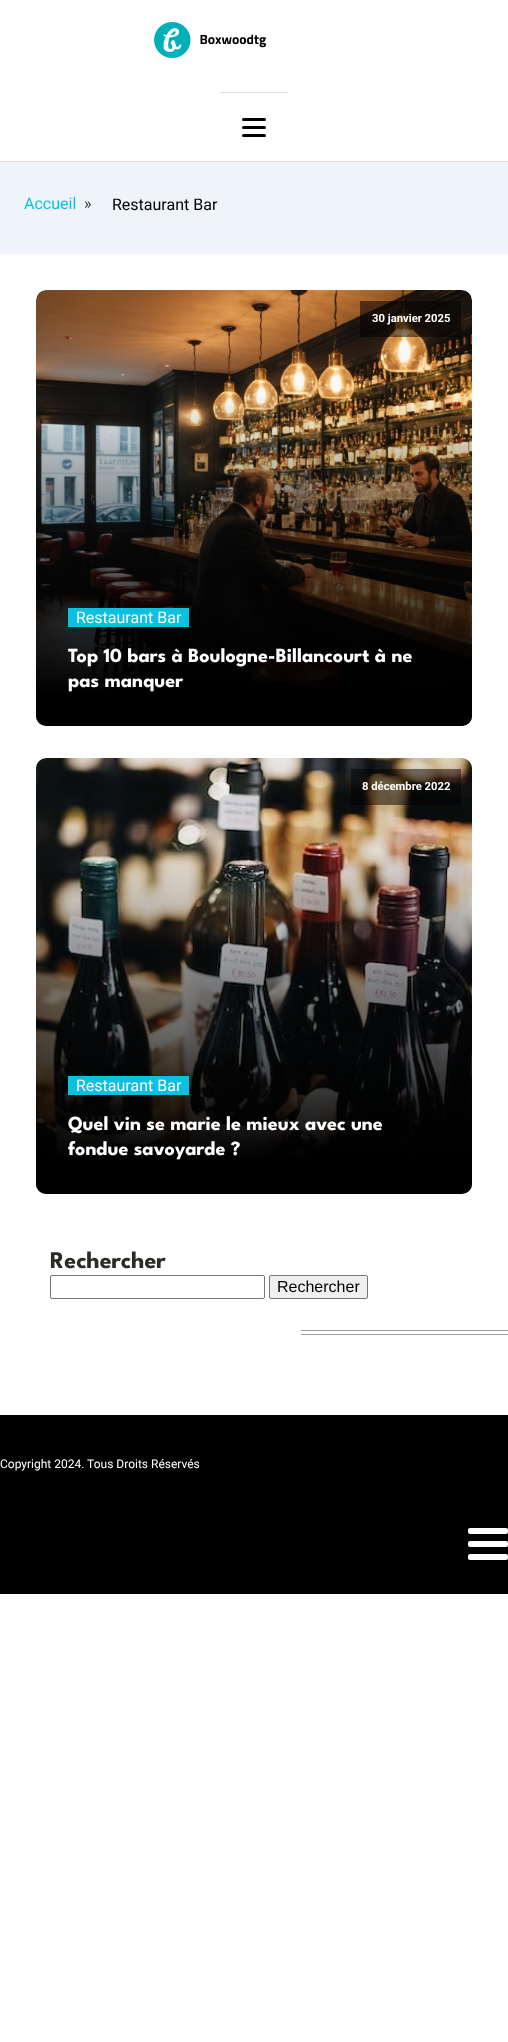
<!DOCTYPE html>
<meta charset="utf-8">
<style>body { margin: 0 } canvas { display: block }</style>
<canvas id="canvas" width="508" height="2042"></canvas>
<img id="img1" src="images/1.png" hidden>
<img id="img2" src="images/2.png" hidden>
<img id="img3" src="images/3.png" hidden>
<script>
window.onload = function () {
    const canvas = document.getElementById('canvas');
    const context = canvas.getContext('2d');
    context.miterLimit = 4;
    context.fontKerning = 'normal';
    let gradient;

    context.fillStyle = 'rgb(255, 255, 255)';
    context.fillRect(0, 0, 508, 2042);
    context.fillStyle = 'rgb(221, 221, 221)';
    context.fillRect(0, 161, 508, 1);
    context.drawImage(document.getElementById('img1'), 154, 22, 112, 36);
    context.fillRect(220, 92, 68, 1);
    context.fillStyle = 'rgb(0, 0, 0)';
    context.beginPath();
    context.roundRect(242, 118, 24, 3, 1.5);
    context.fill();
    context.beginPath();
    context.roundRect(242, 126, 24, 3, 1.5);
    context.fill();
    context.beginPath();
    context.roundRect(242, 134, 24, 3, 1.5);
    context.fill();
    context.fillStyle = 'rgb(239, 244, 251)';
    context.fillRect(0, 162, 508, 92);
    gradient = context.createLinearGradient(36, 726, 474, 288);
    gradient.addColorStop(0, 'rgb(238, 238, 238)');
    gradient.addColorStop(0.02, 'rgb(238, 238, 238)');
    gradient.addColorStop(0.02, 'rgb(221, 221, 221)');
    gradient.addColorStop(0.03, 'rgb(221, 221, 221)');
    gradient.addColorStop(0.03, 'rgb(238, 238, 238)');
    gradient.addColorStop(0.05, 'rgb(238, 238, 238)');
    gradient.addColorStop(0.05, 'rgb(221, 221, 221)');
    gradient.addColorStop(0.06, 'rgb(221, 221, 221)');
    gradient.addColorStop(0.06, 'rgb(238, 238, 238)');
    gradient.addColorStop(0.08, 'rgb(238, 238, 238)');
    gradient.addColorStop(0.08, 'rgb(221, 221, 221)');
    gradient.addColorStop(0.1, 'rgb(221, 221, 221)');
    gradient.addColorStop(0.1, 'rgb(238, 238, 238)');
    gradient.addColorStop(0.11, 'rgb(238, 238, 238)');
    gradient.addColorStop(0.11, 'rgb(221, 221, 221)');
    gradient.addColorStop(0.13, 'rgb(221, 221, 221)');
    gradient.addColorStop(0.13, 'rgb(238, 238, 238)');
    gradient.addColorStop(0.15, 'rgb(238, 238, 238)');
    gradient.addColorStop(0.15, 'rgb(221, 221, 221)');
    gradient.addColorStop(0.16, 'rgb(221, 221, 221)');
    gradient.addColorStop(0.16, 'rgb(238, 238, 238)');
    gradient.addColorStop(0.18, 'rgb(238, 238, 238)');
    gradient.addColorStop(0.18, 'rgb(221, 221, 221)');
    gradient.addColorStop(0.19, 'rgb(221, 221, 221)');
    gradient.addColorStop(0.19, 'rgb(238, 238, 238)');
    gradient.addColorStop(0.21, 'rgb(238, 238, 238)');
    gradient.addColorStop(0.21, 'rgb(221, 221, 221)');
    gradient.addColorStop(0.23, 'rgb(221, 221, 221)');
    gradient.addColorStop(0.23, 'rgb(238, 238, 238)');
    gradient.addColorStop(0.24, 'rgb(238, 238, 238)');
    gradient.addColorStop(0.24, 'rgb(221, 221, 221)');
    gradient.addColorStop(0.26, 'rgb(221, 221, 221)');
    gradient.addColorStop(0.26, 'rgb(238, 238, 238)');
    gradient.addColorStop(0.27, 'rgb(238, 238, 238)');
    gradient.addColorStop(0.27, 'rgb(221, 221, 221)');
    gradient.addColorStop(0.29, 'rgb(221, 221, 221)');
    gradient.addColorStop(0.29, 'rgb(238, 238, 238)');
    gradient.addColorStop(0.31, 'rgb(238, 238, 238)');
    gradient.addColorStop(0.31, 'rgb(221, 221, 221)');
    gradient.addColorStop(0.32, 'rgb(221, 221, 221)');
    gradient.addColorStop(0.32, 'rgb(238, 238, 238)');
    gradient.addColorStop(0.34, 'rgb(238, 238, 238)');
    gradient.addColorStop(0.34, 'rgb(221, 221, 221)');
    gradient.addColorStop(0.35, 'rgb(221, 221, 221)');
    gradient.addColorStop(0.35, 'rgb(238, 238, 238)');
    gradient.addColorStop(0.37, 'rgb(238, 238, 238)');
    gradient.addColorStop(0.37, 'rgb(221, 221, 221)');
    gradient.addColorStop(0.39, 'rgb(221, 221, 221)');
    gradient.addColorStop(0.39, 'rgb(238, 238, 238)');
    gradient.addColorStop(0.4, 'rgb(238, 238, 238)');
    gradient.addColorStop(0.4, 'rgb(221, 221, 221)');
    gradient.addColorStop(0.42, 'rgb(221, 221, 221)');
    gradient.addColorStop(0.42, 'rgb(238, 238, 238)');
    gradient.addColorStop(0.44, 'rgb(238, 238, 238)');
    gradient.addColorStop(0.44, 'rgb(221, 221, 221)');
    gradient.addColorStop(0.45, 'rgb(221, 221, 221)');
    gradient.addColorStop(0.45, 'rgb(238, 238, 238)');
    gradient.addColorStop(0.47, 'rgb(238, 238, 238)');
    gradient.addColorStop(0.47, 'rgb(221, 221, 221)');
    gradient.addColorStop(0.48, 'rgb(221, 221, 221)');
    gradient.addColorStop(0.48, 'rgb(238, 238, 238)');
    gradient.addColorStop(0.5, 'rgb(238, 238, 238)');
    gradient.addColorStop(0.5, 'rgb(221, 221, 221)');
    gradient.addColorStop(0.52, 'rgb(221, 221, 221)');
    gradient.addColorStop(0.52, 'rgb(238, 238, 238)');
    gradient.addColorStop(0.53, 'rgb(238, 238, 238)');
    gradient.addColorStop(0.53, 'rgb(221, 221, 221)');
    gradient.addColorStop(0.55, 'rgb(221, 221, 221)');
    gradient.addColorStop(0.55, 'rgb(238, 238, 238)');
    gradient.addColorStop(0.56, 'rgb(238, 238, 238)');
    gradient.addColorStop(0.56, 'rgb(221, 221, 221)');
    gradient.addColorStop(0.58, 'rgb(221, 221, 221)');
    gradient.addColorStop(0.58, 'rgb(238, 238, 238)');
    gradient.addColorStop(0.6, 'rgb(238, 238, 238)');
    gradient.addColorStop(0.6, 'rgb(221, 221, 221)');
    gradient.addColorStop(0.61, 'rgb(221, 221, 221)');
    gradient.addColorStop(0.61, 'rgb(238, 238, 238)');
    gradient.addColorStop(0.63, 'rgb(238, 238, 238)');
    gradient.addColorStop(0.63, 'rgb(221, 221, 221)');
    gradient.addColorStop(0.65, 'rgb(221, 221, 221)');
    gradient.addColorStop(0.65, 'rgb(238, 238, 238)');
    gradient.addColorStop(0.66, 'rgb(238, 238, 238)');
    gradient.addColorStop(0.66, 'rgb(221, 221, 221)');
    gradient.addColorStop(0.68, 'rgb(221, 221, 221)');
    gradient.addColorStop(0.68, 'rgb(238, 238, 238)');
    gradient.addColorStop(0.69, 'rgb(238, 238, 238)');
    gradient.addColorStop(0.69, 'rgb(221, 221, 221)');
    gradient.addColorStop(0.71, 'rgb(221, 221, 221)');
    gradient.addColorStop(0.71, 'rgb(238, 238, 238)');
    gradient.addColorStop(0.73, 'rgb(238, 238, 238)');
    gradient.addColorStop(0.73, 'rgb(221, 221, 221)');
    gradient.addColorStop(0.74, 'rgb(221, 221, 221)');
    gradient.addColorStop(0.74, 'rgb(238, 238, 238)');
    gradient.addColorStop(0.76, 'rgb(238, 238, 238)');
    gradient.addColorStop(0.76, 'rgb(221, 221, 221)');
    gradient.addColorStop(0.77, 'rgb(221, 221, 221)');
    gradient.addColorStop(0.77, 'rgb(238, 238, 238)');
    gradient.addColorStop(0.79, 'rgb(238, 238, 238)');
    gradient.addColorStop(0.79, 'rgb(221, 221, 221)');
    gradient.addColorStop(0.81, 'rgb(221, 221, 221)');
    gradient.addColorStop(0.81, 'rgb(238, 238, 238)');
    gradient.addColorStop(0.82, 'rgb(238, 238, 238)');
    gradient.addColorStop(0.82, 'rgb(221, 221, 221)');
    gradient.addColorStop(0.84, 'rgb(221, 221, 221)');
    gradient.addColorStop(0.84, 'rgb(238, 238, 238)');
    gradient.addColorStop(0.85, 'rgb(238, 238, 238)');
    gradient.addColorStop(0.85, 'rgb(221, 221, 221)');
    gradient.addColorStop(0.87, 'rgb(221, 221, 221)');
    gradient.addColorStop(0.87, 'rgb(238, 238, 238)');
    gradient.addColorStop(0.89, 'rgb(238, 238, 238)');
    gradient.addColorStop(0.89, 'rgb(221, 221, 221)');
    gradient.addColorStop(0.9, 'rgb(221, 221, 221)');
    gradient.addColorStop(0.9, 'rgb(238, 238, 238)');
    gradient.addColorStop(0.92, 'rgb(238, 238, 238)');
    gradient.addColorStop(0.92, 'rgb(221, 221, 221)');
    gradient.addColorStop(0.94, 'rgb(221, 221, 221)');
    gradient.addColorStop(0.94, 'rgb(238, 238, 238)');
    gradient.addColorStop(0.95, 'rgb(238, 238, 238)');
    gradient.addColorStop(0.95, 'rgb(221, 221, 221)');
    gradient.addColorStop(0.97, 'rgb(221, 221, 221)');
    gradient.addColorStop(0.97, 'rgb(238, 238, 238)');
    gradient.addColorStop(0.98, 'rgb(238, 238, 238)');
    gradient.addColorStop(0.98, 'rgb(221, 221, 221)');
    gradient.addColorStop(1, 'rgb(221, 221, 221)');
    context.fillStyle = gradient;
    context.beginPath();
    context.roundRect(36, 290, 436, 436, 10);
    context.fill();
    context.drawImage(document.getElementById('img2'), 36, 290, 436, 436);
    context.fillStyle = 'rgba(0, 0, 0, 0.5)';
    context.fillRect(360, 301, 101, 36);
    gradient = context.createLinearGradient(254, 392, 254, 726);
    gradient.addColorStop(0, 'rgba(0, 0, 0, 0)');
    gradient.addColorStop(0.9, 'rgb(0, 0, 0)');
    context.fillStyle = gradient;
    context.beginPath();
    context.roundRect(36, 392, 436, 334, 10);
    context.fill();
    context.fillStyle = 'rgb(12, 192, 223)';
    context.fillRect(68, 608, 121, 19);
    gradient = context.createLinearGradient(36, 1194, 474, 756);
    gradient.addColorStop(0, 'rgb(238, 238, 238)');
    gradient.addColorStop(0.02, 'rgb(238, 238, 238)');
    gradient.addColorStop(0.02, 'rgb(221, 221, 221)');
    gradient.addColorStop(0.03, 'rgb(221, 221, 221)');
    gradient.addColorStop(0.03, 'rgb(238, 238, 238)');
    gradient.addColorStop(0.05, 'rgb(238, 238, 238)');
    gradient.addColorStop(0.05, 'rgb(221, 221, 221)');
    gradient.addColorStop(0.06, 'rgb(221, 221, 221)');
    gradient.addColorStop(0.06, 'rgb(238, 238, 238)');
    gradient.addColorStop(0.08, 'rgb(238, 238, 238)');
    gradient.addColorStop(0.08, 'rgb(221, 221, 221)');
    gradient.addColorStop(0.1, 'rgb(221, 221, 221)');
    gradient.addColorStop(0.1, 'rgb(238, 238, 238)');
    gradient.addColorStop(0.11, 'rgb(238, 238, 238)');
    gradient.addColorStop(0.11, 'rgb(221, 221, 221)');
    gradient.addColorStop(0.13, 'rgb(221, 221, 221)');
    gradient.addColorStop(0.13, 'rgb(238, 238, 238)');
    gradient.addColorStop(0.15, 'rgb(238, 238, 238)');
    gradient.addColorStop(0.15, 'rgb(221, 221, 221)');
    gradient.addColorStop(0.16, 'rgb(221, 221, 221)');
    gradient.addColorStop(0.16, 'rgb(238, 238, 238)');
    gradient.addColorStop(0.18, 'rgb(238, 238, 238)');
    gradient.addColorStop(0.18, 'rgb(221, 221, 221)');
    gradient.addColorStop(0.19, 'rgb(221, 221, 221)');
    gradient.addColorStop(0.19, 'rgb(238, 238, 238)');
    gradient.addColorStop(0.21, 'rgb(238, 238, 238)');
    gradient.addColorStop(0.21, 'rgb(221, 221, 221)');
    gradient.addColorStop(0.23, 'rgb(221, 221, 221)');
    gradient.addColorStop(0.23, 'rgb(238, 238, 238)');
    gradient.addColorStop(0.24, 'rgb(238, 238, 238)');
    gradient.addColorStop(0.24, 'rgb(221, 221, 221)');
    gradient.addColorStop(0.26, 'rgb(221, 221, 221)');
    gradient.addColorStop(0.26, 'rgb(238, 238, 238)');
    gradient.addColorStop(0.27, 'rgb(238, 238, 238)');
    gradient.addColorStop(0.27, 'rgb(221, 221, 221)');
    gradient.addColorStop(0.29, 'rgb(221, 221, 221)');
    gradient.addColorStop(0.29, 'rgb(238, 238, 238)');
    gradient.addColorStop(0.31, 'rgb(238, 238, 238)');
    gradient.addColorStop(0.31, 'rgb(221, 221, 221)');
    gradient.addColorStop(0.32, 'rgb(221, 221, 221)');
    gradient.addColorStop(0.32, 'rgb(238, 238, 238)');
    gradient.addColorStop(0.34, 'rgb(238, 238, 238)');
    gradient.addColorStop(0.34, 'rgb(221, 221, 221)');
    gradient.addColorStop(0.35, 'rgb(221, 221, 221)');
    gradient.addColorStop(0.35, 'rgb(238, 238, 238)');
    gradient.addColorStop(0.37, 'rgb(238, 238, 238)');
    gradient.addColorStop(0.37, 'rgb(221, 221, 221)');
    gradient.addColorStop(0.39, 'rgb(221, 221, 221)');
    gradient.addColorStop(0.39, 'rgb(238, 238, 238)');
    gradient.addColorStop(0.4, 'rgb(238, 238, 238)');
    gradient.addColorStop(0.4, 'rgb(221, 221, 221)');
    gradient.addColorStop(0.42, 'rgb(221, 221, 221)');
    gradient.addColorStop(0.42, 'rgb(238, 238, 238)');
    gradient.addColorStop(0.44, 'rgb(238, 238, 238)');
    gradient.addColorStop(0.44, 'rgb(221, 221, 221)');
    gradient.addColorStop(0.45, 'rgb(221, 221, 221)');
    gradient.addColorStop(0.45, 'rgb(238, 238, 238)');
    gradient.addColorStop(0.47, 'rgb(238, 238, 238)');
    gradient.addColorStop(0.47, 'rgb(221, 221, 221)');
    gradient.addColorStop(0.48, 'rgb(221, 221, 221)');
    gradient.addColorStop(0.48, 'rgb(238, 238, 238)');
    gradient.addColorStop(0.5, 'rgb(238, 238, 238)');
    gradient.addColorStop(0.5, 'rgb(221, 221, 221)');
    gradient.addColorStop(0.52, 'rgb(221, 221, 221)');
    gradient.addColorStop(0.52, 'rgb(238, 238, 238)');
    gradient.addColorStop(0.53, 'rgb(238, 238, 238)');
    gradient.addColorStop(0.53, 'rgb(221, 221, 221)');
    gradient.addColorStop(0.55, 'rgb(221, 221, 221)');
    gradient.addColorStop(0.55, 'rgb(238, 238, 238)');
    gradient.addColorStop(0.56, 'rgb(238, 238, 238)');
    gradient.addColorStop(0.56, 'rgb(221, 221, 221)');
    gradient.addColorStop(0.58, 'rgb(221, 221, 221)');
    gradient.addColorStop(0.58, 'rgb(238, 238, 238)');
    gradient.addColorStop(0.6, 'rgb(238, 238, 238)');
    gradient.addColorStop(0.6, 'rgb(221, 221, 221)');
    gradient.addColorStop(0.61, 'rgb(221, 221, 221)');
    gradient.addColorStop(0.61, 'rgb(238, 238, 238)');
    gradient.addColorStop(0.63, 'rgb(238, 238, 238)');
    gradient.addColorStop(0.63, 'rgb(221, 221, 221)');
    gradient.addColorStop(0.65, 'rgb(221, 221, 221)');
    gradient.addColorStop(0.65, 'rgb(238, 238, 238)');
    gradient.addColorStop(0.66, 'rgb(238, 238, 238)');
    gradient.addColorStop(0.66, 'rgb(221, 221, 221)');
    gradient.addColorStop(0.68, 'rgb(221, 221, 221)');
    gradient.addColorStop(0.68, 'rgb(238, 238, 238)');
    gradient.addColorStop(0.69, 'rgb(238, 238, 238)');
    gradient.addColorStop(0.69, 'rgb(221, 221, 221)');
    gradient.addColorStop(0.71, 'rgb(221, 221, 221)');
    gradient.addColorStop(0.71, 'rgb(238, 238, 238)');
    gradient.addColorStop(0.73, 'rgb(238, 238, 238)');
    gradient.addColorStop(0.73, 'rgb(221, 221, 221)');
    gradient.addColorStop(0.74, 'rgb(221, 221, 221)');
    gradient.addColorStop(0.74, 'rgb(238, 238, 238)');
    gradient.addColorStop(0.76, 'rgb(238, 238, 238)');
    gradient.addColorStop(0.76, 'rgb(221, 221, 221)');
    gradient.addColorStop(0.77, 'rgb(221, 221, 221)');
    gradient.addColorStop(0.77, 'rgb(238, 238, 238)');
    gradient.addColorStop(0.79, 'rgb(238, 238, 238)');
    gradient.addColorStop(0.79, 'rgb(221, 221, 221)');
    gradient.addColorStop(0.81, 'rgb(221, 221, 221)');
    gradient.addColorStop(0.81, 'rgb(238, 238, 238)');
    gradient.addColorStop(0.82, 'rgb(238, 238, 238)');
    gradient.addColorStop(0.82, 'rgb(221, 221, 221)');
    gradient.addColorStop(0.84, 'rgb(221, 221, 221)');
    gradient.addColorStop(0.84, 'rgb(238, 238, 238)');
    gradient.addColorStop(0.85, 'rgb(238, 238, 238)');
    gradient.addColorStop(0.85, 'rgb(221, 221, 221)');
    gradient.addColorStop(0.87, 'rgb(221, 221, 221)');
    gradient.addColorStop(0.87, 'rgb(238, 238, 238)');
    gradient.addColorStop(0.89, 'rgb(238, 238, 238)');
    gradient.addColorStop(0.89, 'rgb(221, 221, 221)');
    gradient.addColorStop(0.9, 'rgb(221, 221, 221)');
    gradient.addColorStop(0.9, 'rgb(238, 238, 238)');
    gradient.addColorStop(0.92, 'rgb(238, 238, 238)');
    gradient.addColorStop(0.92, 'rgb(221, 221, 221)');
    gradient.addColorStop(0.94, 'rgb(221, 221, 221)');
    gradient.addColorStop(0.94, 'rgb(238, 238, 238)');
    gradient.addColorStop(0.95, 'rgb(238, 238, 238)');
    gradient.addColorStop(0.95, 'rgb(221, 221, 221)');
    gradient.addColorStop(0.97, 'rgb(221, 221, 221)');
    gradient.addColorStop(0.97, 'rgb(238, 238, 238)');
    gradient.addColorStop(0.98, 'rgb(238, 238, 238)');
    gradient.addColorStop(0.98, 'rgb(221, 221, 221)');
    gradient.addColorStop(1, 'rgb(221, 221, 221)');
    context.fillStyle = gradient;
    context.beginPath();
    context.roundRect(36, 758, 436, 436, 10);
    context.fill();
    context.drawImage(document.getElementById('img3'), 36, 758, 436, 436);
    context.fillStyle = 'rgba(0, 0, 0, 0.5)';
    context.fillRect(351, 769, 110, 36);
    gradient = context.createLinearGradient(254, 860, 254, 1194);
    gradient.addColorStop(0, 'rgba(0, 0, 0, 0)');
    gradient.addColorStop(0.9, 'rgb(0, 0, 0)');
    context.fillStyle = gradient;
    context.beginPath();
    context.roundRect(36, 860, 436, 334, 10);
    context.fill();
    context.fillStyle = 'rgb(12, 192, 223)';
    context.fillRect(68, 1076, 121, 19);
    context.fillStyle = 'rgb(155, 155, 155)';
    context.fillRect(301, 1330, 207, 1);
    context.fillRect(301, 1334, 207, 1);
    context.beginPath();
    context.roundRect(50.5, 1275.5, 214, 23, 1.5);
    context.strokeStyle = 'rgb(118, 118, 118)';
    context.stroke();
    context.fillStyle = 'rgb(239, 239, 239)';
    context.beginPath();
    context.roundRect(269.5, 1275.5, 98, 23, 1.5);
    context.fill();
    context.stroke();
    context.fillStyle = 'rgb(0, 0, 0)';
    context.fillRect(0, 1415, 508, 179);
    context.fillStyle = 'rgb(255, 255, 255)';
    context.beginPath();
    context.roundRect(468, 1528, 40, 6, 2);
    context.fill();
    context.beginPath();
    context.roundRect(468, 1541, 40, 6, 2);
    context.fill();
    context.beginPath();
    context.roundRect(468, 1554, 40, 6, 2);
    context.fill();
    context.font = '16px Roboto';
    context.fillStyle = 'rgb(12, 192, 223)';
    context.fillText('Accueil', 24, 209);
    context.fillStyle = 'rgb(43, 44, 40)';
    context.fillText('»', 84, 209);
    context.fillStyle = 'rgb(0, 0, 0)';
    context.fillText('Restaurant Bar', 112, 210);
    context.font = 'bold 11.25px Roboto';
    context.fillStyle = 'rgb(255, 255, 255)';
    context.fillText('30 janvier 2025', 372, 322);
    context.font = '16px Roboto';
    context.fillText('Restaurant Bar', 76, 623);
    context.font = 'bold 20px League Spartan';
    context.fillText('Top 10 bars à Boulogne-Billancourt à ne', 68, 662);
    context.fillText('pas manquer', 68, 687);
    context.font = 'bold 11.25px Roboto';
    context.fillText('8 décembre 2022', 362, 790);
    context.font = '16px Roboto';
    context.fillText('Restaurant Bar', 76, 1091);
    context.font = 'bold 20px League Spartan';
    context.fillText('Quel vin se marie le mieux avec une', 68, 1130);
    context.fillText('fondue savoyarde ?', 68, 1155);
    context.font = 'bold 24px League Spartan';
    context.fillStyle = 'rgb(43, 44, 40)';
    context.fillText('Rechercher', 50, 1268);
    context.font = '16px Liberation Sans';
    context.fillStyle = 'rgb(0, 0, 0)';
    context.fillText('Rechercher', 277, 1292);
    context.font = '12px Roboto';
    context.fillStyle = 'rgb(255, 255, 255)';
    context.fillText('Copyright 2024. Tous Droits Réservés', 0, 1468);
};
</script>
